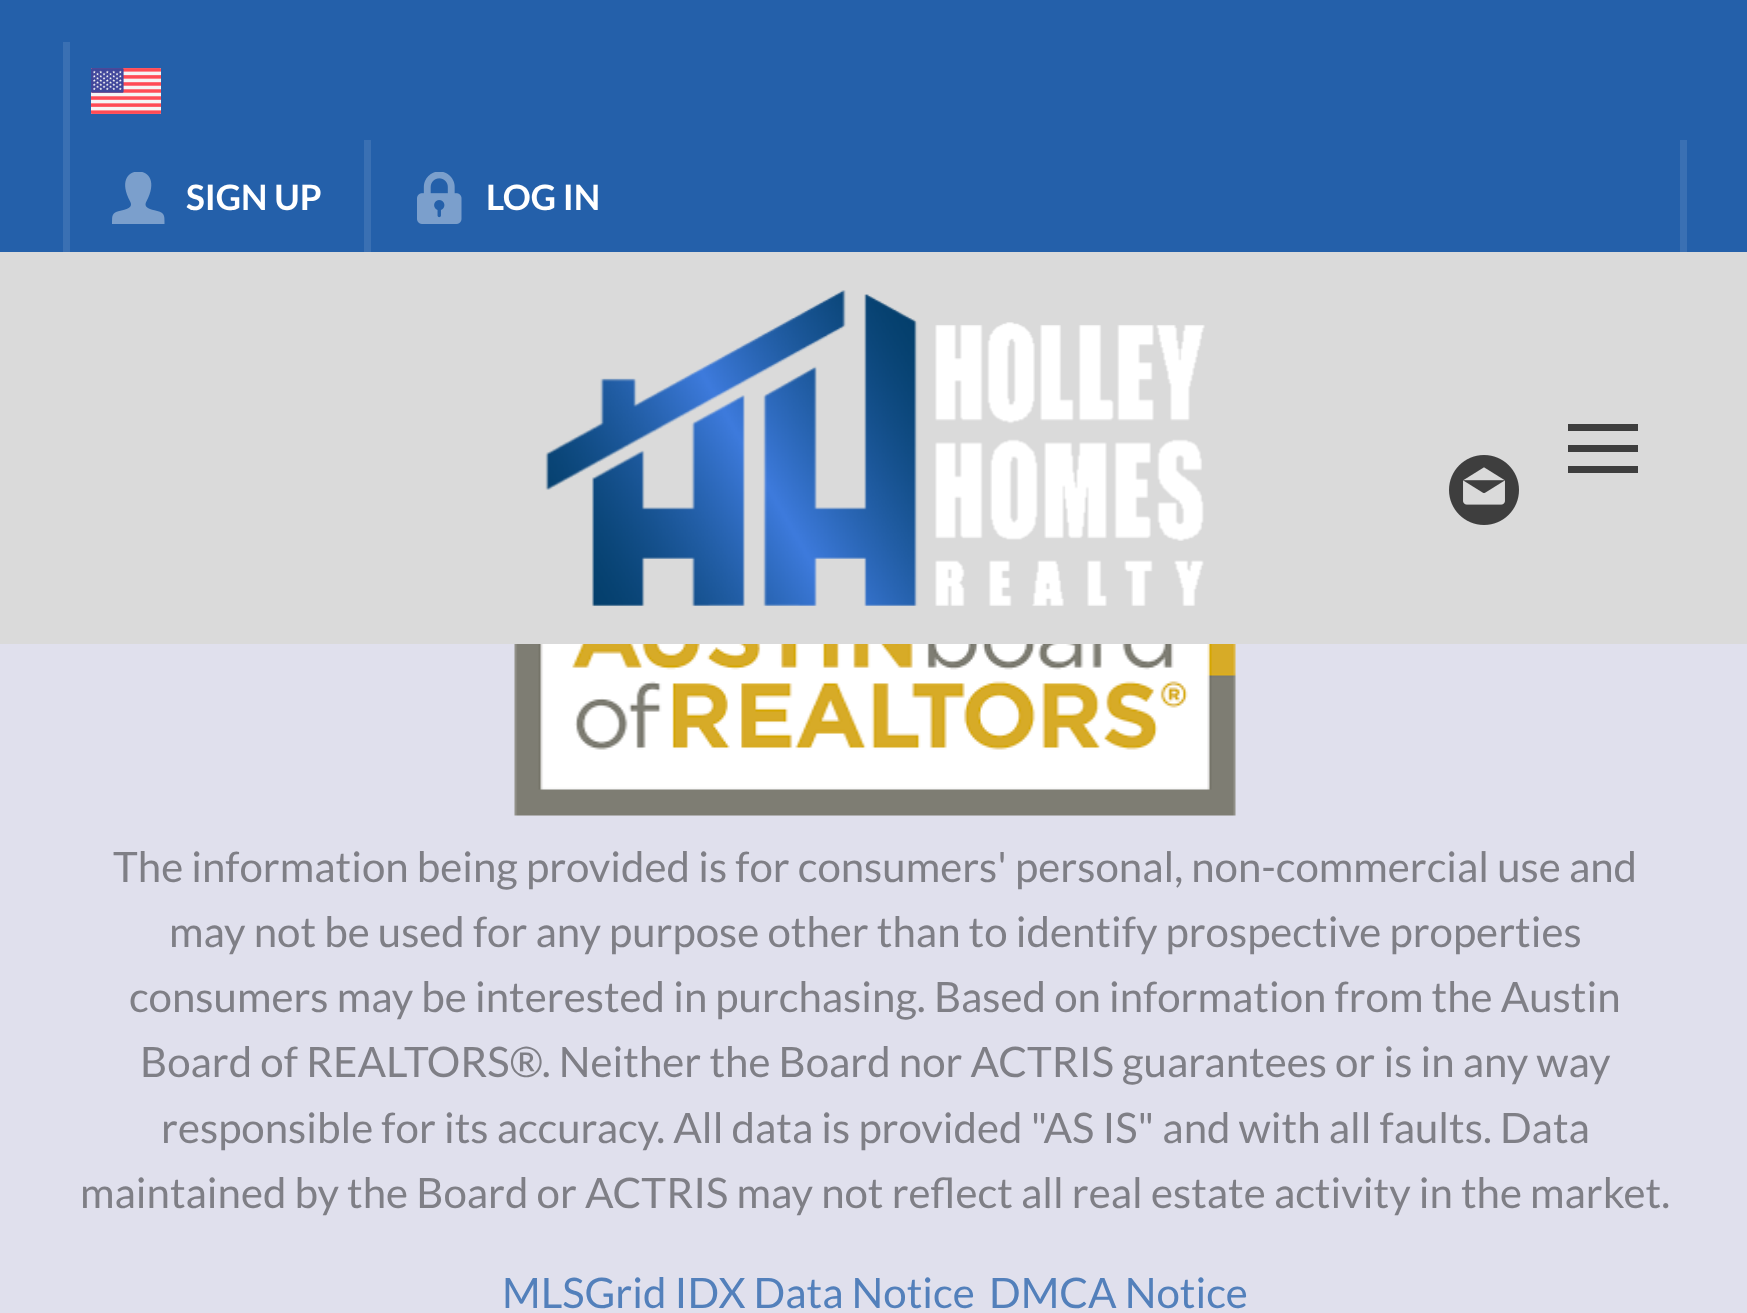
<!DOCTYPE html>
<meta charset="utf-8">
<style>body { margin: 0 } canvas { display: block }</style>
<canvas id="canvas" width="1747" height="1313"></canvas>
<img id="img1" src="images/1.png" hidden>
<img id="img2" src="images/2.png" hidden>
<img id="img3" src="images/3.png" hidden>
<img id="img4" src="images/4.png" hidden>
<img id="img5" src="images/5.png" hidden>
<img id="img6" src="images/6.png" hidden>
<script>
window.onload = function () {
    const canvas = document.getElementById('canvas');
    const context = canvas.getContext('2d');
    context.miterLimit = 4;
    context.fontKerning = 'normal';

    context.fillStyle = 'rgb(224, 224, 237)';
    context.fillRect(0, 0, 1747, 1313);
    context.fillStyle = 'rgb(218, 218, 218)';
    context.fillRect(0, 252, 1747, 392);
    context.fillStyle = 'rgb(36, 96, 170)';
    context.fillRect(0, 0, 1747, 252);
    context.fillStyle = 'rgb(58, 112, 179)';
    context.fillRect(63, 42, 7, 210);
    context.drawImage(document.getElementById('img1'), 91, 68, 70, 46);
    context.fillRect(1680, 140, 7, 112);
    context.drawImage(document.getElementById('img2'), 112, 172, 53, 52);
    context.fillRect(364, 140, 7, 112);
    context.drawImage(document.getElementById('img3'), 417, 172, 45, 52);
    context.drawImage(document.getElementById('img4'), 545, 290, 660, 316);
    context.fillStyle = 'rgb(62, 62, 62)';
    context.fillRect(1568, 424, 70, 7);
    context.fillRect(1568, 445, 70, 7);
    context.fillRect(1568, 466, 70, 7);
    context.drawImage(document.getElementById('img5'), 1449, 455, 70, 70);
    context.drawImage(document.getElementById('img6'), 514, 644, 722, 172);
    context.font = 'bold 35px Lato';
    context.fillStyle = 'rgb(255, 255, 255)';
    context.fillText('SIGN UP', 186, 210);
    context.fillText('LOG IN', 486, 210);
    context.font = '42px Lato';
    context.fillStyle = 'rgb(127, 127, 134)';
    context.fillText('The information being provided is for consumers\' personal, non-commercial use and', 113, 882);
    context.fillText('may not be used for any purpose other than to identify prospective properties', 169, 947);
    context.fillText('consumers may be interested in purchasing. Based on information from the Austin', 129, 1012);
    context.fillText('Board of REALTORS®. Neither the Board nor ACTRIS guarantees or is in any way', 140, 1077);
    context.fillText('responsible for its accuracy. All data is provided "AS IS" and with all faults. Data', 161, 1143);
    context.fillText('maintained by the Board or ACTRIS may not reflect all real estate activity in the market.', 80, 1208);
    context.fillStyle = 'rgb(83, 128, 187)';
    context.fillText('MLSGrid IDX Data Notice', 502, 1308);
    context.fillText('DMCA Notice', 989, 1308);
};
</script>
